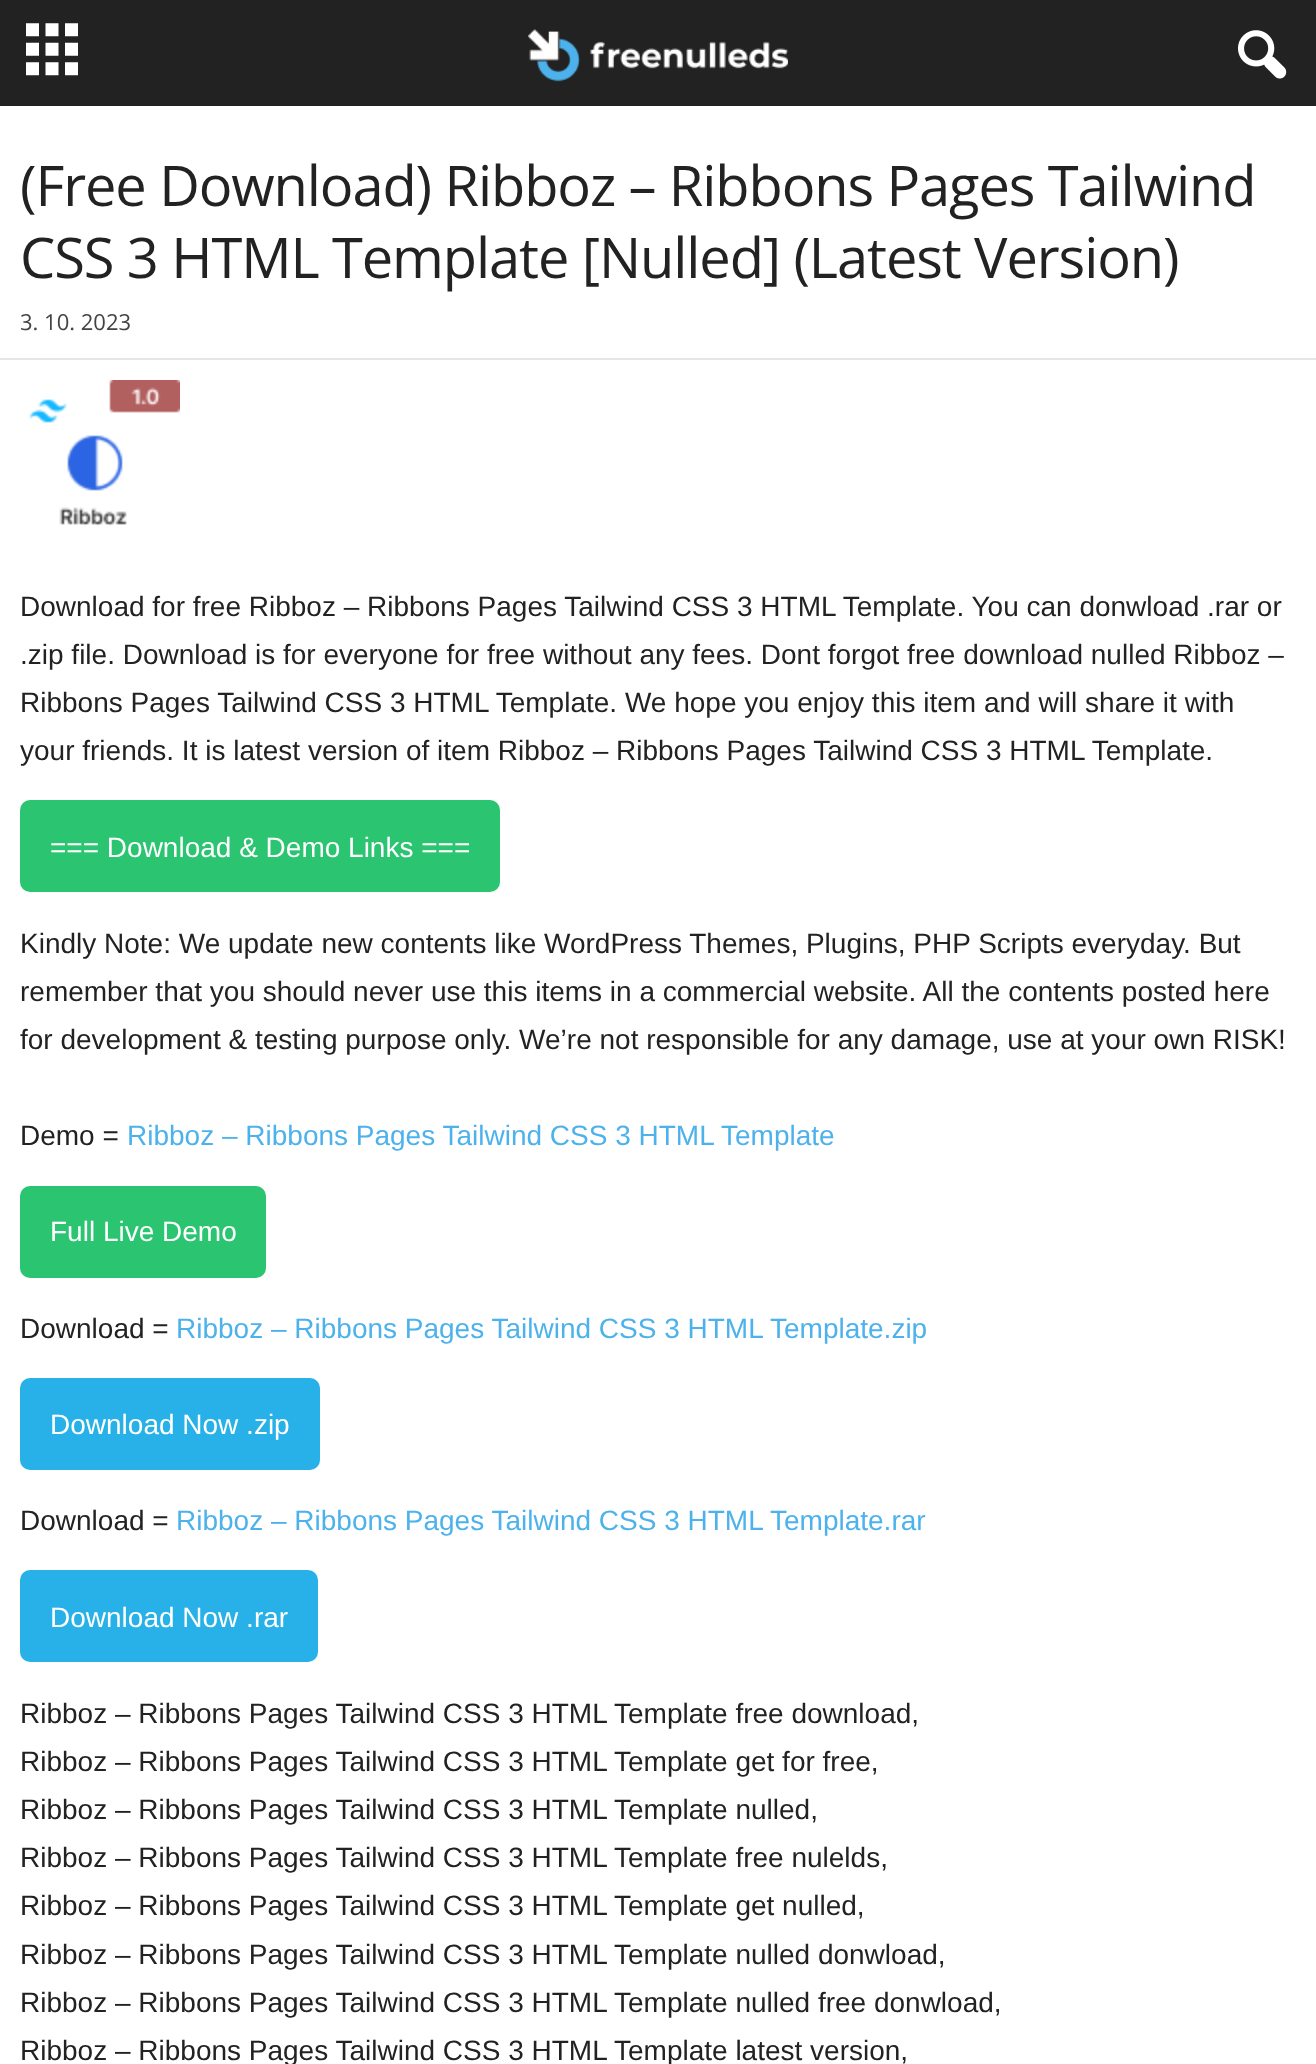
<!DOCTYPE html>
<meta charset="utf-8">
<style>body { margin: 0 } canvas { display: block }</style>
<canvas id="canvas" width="1316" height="2064"></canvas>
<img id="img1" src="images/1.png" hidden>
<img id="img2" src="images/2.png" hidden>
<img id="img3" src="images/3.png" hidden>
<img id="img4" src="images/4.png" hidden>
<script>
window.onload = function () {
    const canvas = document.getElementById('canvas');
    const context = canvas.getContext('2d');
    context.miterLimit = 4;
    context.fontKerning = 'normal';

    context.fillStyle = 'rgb(255, 255, 255)';
    context.fillRect(0, 0, 1316, 2064);
    context.fillStyle = 'rgb(34, 34, 34)';
    context.fillRect(0, 0, 1316, 106);
    context.drawImage(document.getElementById('img1'), 26, 23, 52, 53);
    context.drawImage(document.getElementById('img2'), 528, 29, 260, 53);
    context.drawImage(document.getElementById('img3'), 1238, 30, 49, 49);
    context.fillStyle = 'rgb(230, 230, 230)';
    context.fillRect(0, 358, 1316, 2);
    context.drawImage(document.getElementById('img4'), 29, 380, 151, 146);
    context.fillStyle = 'rgb(43, 196, 112)';
    context.beginPath();
    context.roundRect(20, 800, 480, 92, 10);
    context.fill();
    context.beginPath();
    context.roundRect(20, 1186, 246, 92, 10);
    context.fill();
    context.fillStyle = 'rgb(39, 177, 232)';
    context.beginPath();
    context.roundRect(20, 1378, 300, 92, 10);
    context.fill();
    context.beginPath();
    context.roundRect(20, 1570, 298, 92, 10);
    context.fill();
    context.letterSpacing = '-1.1px';
    context.font = '56px Open Sans';
    context.fillStyle = 'rgb(34, 34, 34)';
    context.fillText('(Free Download) Ribboz – Ribbons Pages Tailwind', 20, 206);
    context.fillText('CSS 3 HTML Template [Nulled] (Latest Version)', 20, 278);
    context.letterSpacing = '0px';
    context.font = '22px Open Sans';
    context.fillStyle = 'rgb(68, 68, 68)';
    context.fillText('3. 10. 2023', 20, 330);
    context.font = '28px Liberation Sans';
    context.fillStyle = 'rgb(34, 34, 34)';
    context.fillText('Download for free Ribboz – Ribbons Pages Tailwind CSS 3 HTML Template. You can donwload .rar or', 20, 616);
    context.fillText('.zip file. Download is for everyone for free without any fees. Dont forgot free download nulled Ribboz –', 20, 664);
    context.fillText('Ribbons Pages Tailwind CSS 3 HTML Template. We hope you enjoy this item and will share it with', 20, 712);
    context.fillText('your friends. It is latest version of item Ribboz – Ribbons Pages Tailwind CSS 3 HTML Template.', 20, 760);
    context.fillStyle = 'rgb(255, 255, 255)';
    context.fillText('=== Download & Demo Links ===', 50, 857);
    context.fillStyle = 'rgb(34, 34, 34)';
    context.fillText('Kindly Note: We update new contents like WordPress Themes, Plugins, PHP Scripts everyday. But', 20, 953);
    context.fillText('remember that you should never use this items in a commercial website. All the contents posted here', 20, 1001);
    context.fillText('for development & testing purpose only. We’re not responsible for any damage, use at your own RISK!', 20, 1049);
    context.fillText('Demo =', 20, 1145);
    context.fillStyle = 'rgb(77, 178, 236)';
    context.fillText('Ribboz – Ribbons Pages Tailwind CSS 3 HTML Template', 127, 1145);
    context.fillStyle = 'rgb(255, 255, 255)';
    context.fillText('Full Live Demo', 50, 1241);
    context.fillStyle = 'rgb(34, 34, 34)';
    context.fillText('Download =', 20, 1338);
    context.fillStyle = 'rgb(77, 178, 236)';
    context.fillText('Ribboz – Ribbons Pages Tailwind CSS 3 HTML Template.zip', 176, 1338);
    context.fillStyle = 'rgb(255, 255, 255)';
    context.fillText('Download Now .zip', 50, 1434);
    context.fillStyle = 'rgb(34, 34, 34)';
    context.fillText('Download =', 20, 1530);
    context.fillStyle = 'rgb(77, 178, 236)';
    context.fillText('Ribboz – Ribbons Pages Tailwind CSS 3 HTML Template.rar', 176, 1530);
    context.fillStyle = 'rgb(255, 255, 255)';
    context.fillText('Download Now .rar', 50, 1627);
    context.fillStyle = 'rgb(34, 34, 34)';
    context.fillText('Ribboz – Ribbons Pages Tailwind CSS 3 HTML Template free download,', 20, 1723);
    context.fillText('Ribboz – Ribbons Pages Tailwind CSS 3 HTML Template get for free,', 20, 1771);
    context.fillText('Ribboz – Ribbons Pages Tailwind CSS 3 HTML Template nulled,', 20, 1819);
    context.fillText('Ribboz – Ribbons Pages Tailwind CSS 3 HTML Template free nulelds,', 20, 1867);
    context.fillText('Ribboz – Ribbons Pages Tailwind CSS 3 HTML Template get nulled,', 20, 1915);
    context.fillText('Ribboz – Ribbons Pages Tailwind CSS 3 HTML Template nulled donwload,', 20, 1964);
    context.fillText('Ribboz – Ribbons Pages Tailwind CSS 3 HTML Template nulled free donwload,', 20, 2012);
    context.fillText('Ribboz – Ribbons Pages Tailwind CSS 3 HTML Template latest version,', 20, 2060);
};
</script>
